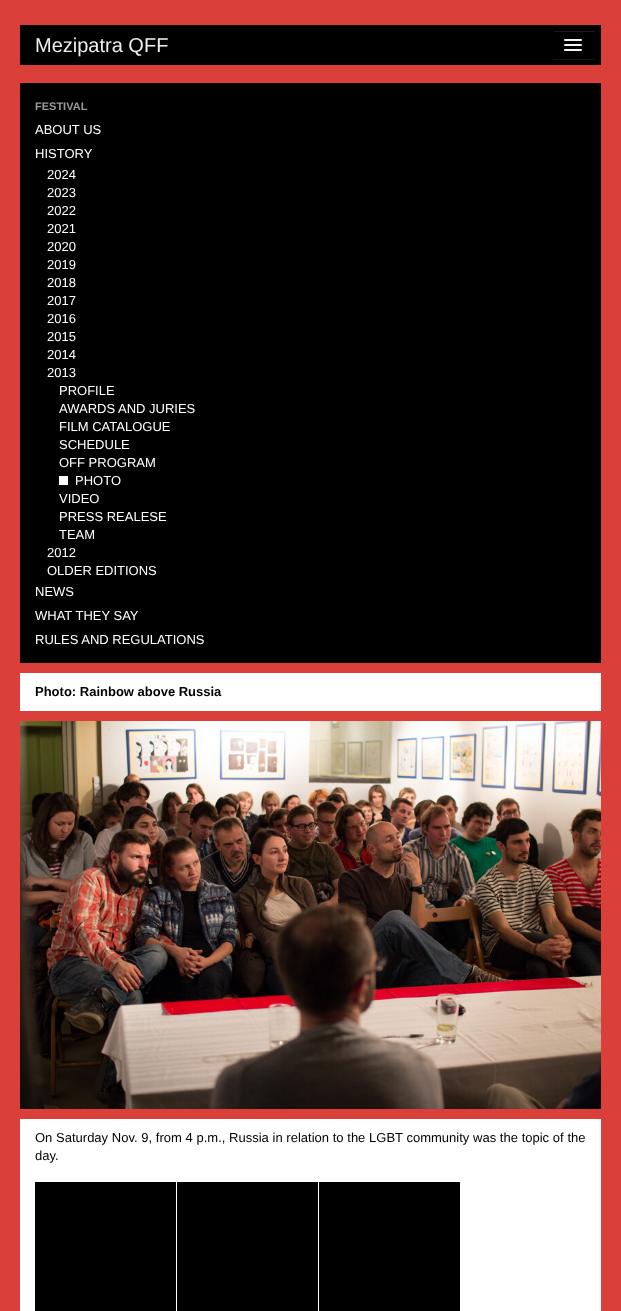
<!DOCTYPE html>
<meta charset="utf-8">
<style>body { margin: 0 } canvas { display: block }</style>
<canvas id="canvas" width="621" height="1311"></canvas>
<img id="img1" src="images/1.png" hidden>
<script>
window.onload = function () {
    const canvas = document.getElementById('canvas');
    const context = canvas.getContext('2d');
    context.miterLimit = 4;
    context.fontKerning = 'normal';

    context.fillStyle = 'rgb(218, 64, 57)';
    context.fillRect(0, 0, 621, 1311);
    context.fillStyle = 'rgb(0, 0, 0)';
    context.fillRect(20, 25, 581, 40);
    context.fillStyle = 'rgb(19, 19, 19)';
    context.fillRect(553, 59, 43, 1);
    context.fillStyle = 'rgb(26, 26, 26)';
    context.fillRect(554, 31, 41, 1);
    context.fillStyle = 'rgb(245, 245, 245)';
    context.beginPath();
    context.roundRect(564, 39, 18, 2, 1);
    context.fill();
    context.beginPath();
    context.roundRect(564, 44, 18, 2, 1);
    context.fill();
    context.beginPath();
    context.roundRect(564, 49, 18, 2, 1);
    context.fill();
    context.fillStyle = 'rgb(0, 0, 0)';
    context.fillRect(20, 83, 581, 580);
    context.fillStyle = 'rgb(255, 255, 255)';
    context.fillRect(59, 476, 9, 9);
    context.fillRect(20, 673, 581, 38);
    context.drawImage(document.getElementById('img1'), 20, 721, 581, 388);
    context.fillRect(20, 1119, 581, 192);
    context.fillStyle = 'rgb(0, 0, 0)';
    context.fillRect(35, 1182, 141, 129);
    context.fillRect(177, 1182, 141, 129);
    context.fillRect(319, 1182, 141, 129);
    context.font = '20px Liberation Sans';
    context.fillStyle = 'rgb(238, 238, 238)';
    context.fillText('Mezipatra QFF', 35, 52);
    context.font = 'bold 11px Liberation Sans';
    context.fillStyle = 'rgb(153, 153, 153)';
    context.fillText('FESTIVAL', 35, 110);
    context.font = '13px Liberation Sans';
    context.fillStyle = 'rgb(255, 255, 255)';
    context.fillText('ABOUT US', 35, 134);
    context.fillText('HISTORY', 35, 158);
    context.fillText('2024', 47, 179);
    context.fillText('2023', 47, 197);
    context.fillText('2022', 47, 215);
    context.fillText('2021', 47, 233);
    context.fillText('2020', 47, 251);
    context.fillText('2019', 47, 269);
    context.fillText('2018', 47, 287);
    context.fillText('2017', 47, 305);
    context.fillText('2016', 47, 323);
    context.fillText('2015', 47, 341);
    context.fillText('2014', 47, 359);
    context.fillText('2013', 47, 377);
    context.fillText('PROFILE', 59, 395);
    context.fillText('AWARDS AND JURIES', 59, 413);
    context.fillText('FILM CATALOGUE', 59, 431);
    context.fillText('SCHEDULE', 59, 449);
    context.fillText('OFF PROGRAM', 59, 467);
    context.fillText('PHOTO', 75, 485);
    context.fillText('VIDEO', 59, 503);
    context.fillText('PRESS REALESE', 59, 521);
    context.fillText('TEAM', 59, 539);
    context.fillText('2012', 47, 557);
    context.fillText('OLDER EDITIONS', 47, 575);
    context.fillText('NEWS', 35, 596);
    context.fillText('WHAT THEY SAY', 35, 620);
    context.fillText('RULES AND REGULATIONS', 35, 644);
    context.font = 'bold 13px Liberation Sans';
    context.fillStyle = 'rgb(0, 0, 0)';
    context.fillText('Photo: Rainbow above Russia', 35, 696);
    context.wordSpacing = '0.1px';
    context.font = '13px Liberation Sans';
    context.fillText('On Saturday Nov. 9, from 4 p.m., Russia in relation to the LGBT community was the topic of the', 35, 1142);
    context.wordSpacing = '0px';
    context.fillText('day.', 35, 1160);
};
</script>
